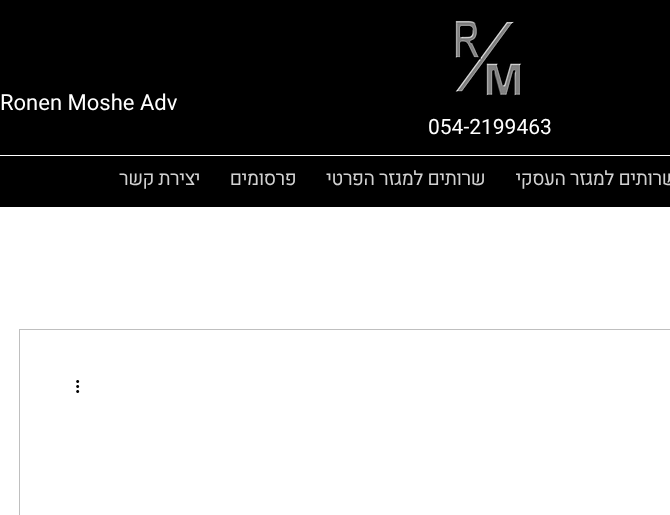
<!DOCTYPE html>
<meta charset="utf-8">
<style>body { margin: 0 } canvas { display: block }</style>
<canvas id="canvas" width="670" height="515"></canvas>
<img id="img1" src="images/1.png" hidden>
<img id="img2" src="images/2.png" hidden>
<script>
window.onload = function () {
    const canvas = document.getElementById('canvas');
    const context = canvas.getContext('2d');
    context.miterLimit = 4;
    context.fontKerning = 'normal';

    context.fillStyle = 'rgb(255, 255, 255)';
    context.fillRect(0, 0, 670, 515);
    context.fillStyle = 'rgb(0, 0, 0)';
    context.fillRect(0, 0, 670, 207);
    context.drawImage(document.getElementById('img1'), 455, 20, 67, 76);
    context.fillStyle = 'rgb(255, 255, 255)';
    context.fillRect(0, 155, 670, 1);
    context.strokeStyle = 'rgb(191, 191, 191)';
    context.strokeRect(19.5, 329.5, 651, 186);
    context.drawImage(document.getElementById('img2'), 76, 380, 4, 13);
    context.font = '22px Heebo';
    context.fillText('Ronen Moshe Adv', 0, 110);
    context.font = '21px Heebo';
    context.fillText('054-2199463', 428, 134);
    context.direction = 'rtl';
    context.font = 'bold 19px Heebo';
    context.fillStyle = 'rgb(209, 209, 209)';
    context.fillText('שרותים למגזר העסקי', 676, 185);
    context.fillText('שרותים למגזר הפרטי', 485, 185);
    context.fillText('פרסומים', 296, 185);
    context.fillText('יצירת קשר', 200, 185);
};
</script>
